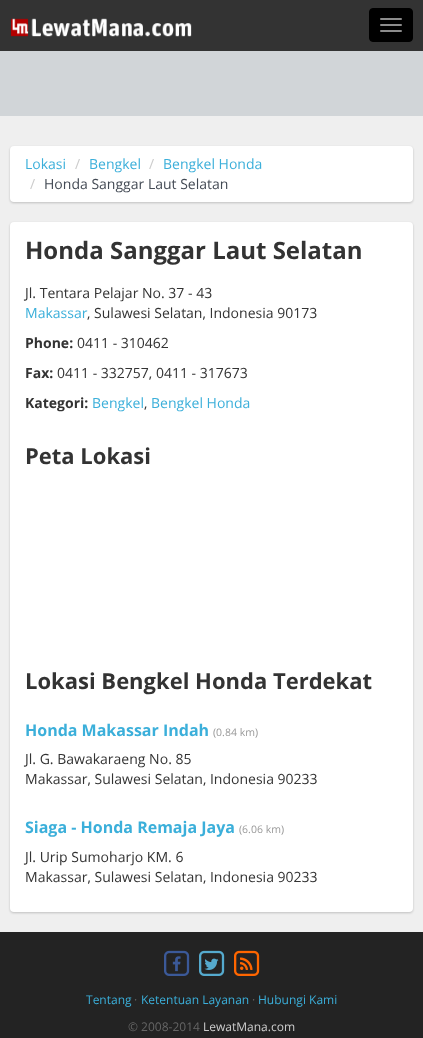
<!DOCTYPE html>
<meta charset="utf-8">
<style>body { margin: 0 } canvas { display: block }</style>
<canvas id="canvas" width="423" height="1038"></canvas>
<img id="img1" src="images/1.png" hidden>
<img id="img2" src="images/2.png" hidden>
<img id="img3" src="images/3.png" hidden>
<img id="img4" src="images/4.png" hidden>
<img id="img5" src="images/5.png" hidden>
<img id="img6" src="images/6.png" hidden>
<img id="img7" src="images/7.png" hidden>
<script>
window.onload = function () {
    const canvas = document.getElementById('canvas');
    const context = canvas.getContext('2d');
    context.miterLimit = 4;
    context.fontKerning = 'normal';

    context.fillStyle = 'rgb(209, 213, 216)';
    context.fillRect(0, 0, 423, 1038);
    context.fillStyle = 'rgb(51, 51, 51)';
    context.fillRect(0, 0, 423, 51);
    context.drawImage(document.getElementById('img1'), 10, 18, 182, 19);
    context.fillStyle = 'rgb(0, 0, 0)';
    context.beginPath();
    context.roundRect(369.5, 8.5, 43, 33, 3.5);
    context.fill();
    context.strokeStyle = 'rgb(0, 0, 0)';
    context.stroke();
    context.fillStyle = 'rgb(140, 140, 140)';
    context.beginPath();
    context.roundRect(380, 18, 22, 2, 1);
    context.fill();
    context.beginPath();
    context.roundRect(380, 24, 22, 2, 1);
    context.fill();
    context.beginPath();
    context.roundRect(380, 30, 22, 2, 1);
    context.fill();
    context.fillStyle = 'rgb(239, 239, 239)';
    context.fillRect(0, 116, 423, 816);
    context.fillStyle = 'rgba(0, 0, 0, 0.2)';
    context.filter = 'blur(1px)';
    context.beginPath();
    context.roundRect(10, 147, 403, 56, 4);
    context.fill();
    context.filter = 'none';
    context.fillStyle = 'rgb(255, 255, 255)';
    context.beginPath();
    context.roundRect(10, 146, 403, 56, 4);
    context.fill();
    context.fillStyle = 'rgba(0, 0, 0, 0.2)';
    context.filter = 'blur(1px)';
    context.beginPath();
    context.roundRect(10, 223, 403, 690, 4);
    context.fill();
    context.filter = 'none';
    context.fillStyle = 'rgb(255, 255, 255)';
    context.beginPath();
    context.roundRect(10, 222, 403, 690, 4);
    context.fill();
    context.fillStyle = 'rgb(35, 35, 35)';
    context.fillRect(0, 932, 423, 106);
    context.drawImage(document.getElementById('img2'), 164, 950, 26, 26);
    context.drawImage(document.getElementById('img3'), 172, 956, 9, 16);
    context.drawImage(document.getElementById('img4'), 199, 950, 26, 26);
    context.drawImage(document.getElementById('img5'), 204, 958, 15, 12);
    context.drawImage(document.getElementById('img6'), 234, 950, 26, 26);
    context.drawImage(document.getElementById('img7'), 240, 957, 13, 13);
    context.font = '14px Open Sans';
    context.fillStyle = 'rgb(59, 175, 218)';
    context.fillText('Lokasi', 25, 169);
    context.fillStyle = 'rgb(204, 204, 204)';
    context.fillText('/', 75, 169);
    context.fillStyle = 'rgb(59, 175, 218)';
    context.fillText('Bengkel', 89, 169);
    context.fillStyle = 'rgb(204, 204, 204)';
    context.fillText('/', 149, 169);
    context.fillStyle = 'rgb(59, 175, 218)';
    context.fillText('Bengkel Honda', 163, 169);
    context.fillStyle = 'rgb(204, 204, 204)';
    context.fillText('/', 30, 189);
    context.fillStyle = 'rgb(67, 74, 84)';
    context.fillText('Honda Sanggar Laut Selatan', 44, 189);
    context.font = 'bold 24px Open Sans';
    context.fillStyle = 'rgb(51, 51, 51)';
    context.fillText('Honda Sanggar Laut Selatan', 25, 259);
    context.font = '14px Open Sans';
    context.fillText('Jl. Tentara Pelajar No. 37 - 43', 25, 298);
    context.fillStyle = 'rgb(59, 175, 218)';
    context.fillText('Makassar', 25, 318);
    context.fillStyle = 'rgb(51, 51, 51)';
    context.fillText(', Sulawesi Selatan, Indonesia 90173', 87, 318);
    context.font = 'bold 14px Open Sans';
    context.fillText('Phone:', 25, 348);
    context.font = '14px Open Sans';
    context.fillText('0411 - 310462', 77, 348);
    context.font = 'bold 14px Open Sans';
    context.fillText('Fax:', 25, 378);
    context.font = '14px Open Sans';
    context.fillText('0411 - 332757, 0411 - 317673', 57, 378);
    context.font = 'bold 14px Open Sans';
    context.fillText('Kategori:', 25, 408);
    context.font = '14px Open Sans';
    context.fillStyle = 'rgb(59, 175, 218)';
    context.fillText('Bengkel', 92, 408);
    context.fillStyle = 'rgb(51, 51, 51)';
    context.fillText(',', 144, 408);
    context.fillStyle = 'rgb(59, 175, 218)';
    context.fillText('Bengkel Honda', 151, 408);
    context.font = 'bold 22px Open Sans';
    context.fillStyle = 'rgb(51, 51, 51)';
    context.fillText('Peta Lokasi', 25, 464);
    context.fillText('Lokasi Bengkel Honda Terdekat', 25, 689);
    context.font = 'bold 16px Open Sans';
    context.fillStyle = 'rgb(59, 175, 218)';
    context.fillText('Honda Makassar Indah', 25, 736);
    context.font = '10.5px Open Sans';
    context.fillStyle = 'rgb(153, 153, 153)';
    context.fillText('(0.84 km)', 213, 736);
    context.font = '14px Open Sans';
    context.fillStyle = 'rgb(51, 51, 51)';
    context.fillText('Jl. G. Bawakaraeng No. 85', 25, 764);
    context.fillText('Makassar, Sulawesi Selatan, Indonesia 90233', 25, 784);
    context.font = 'bold 16px Open Sans';
    context.fillStyle = 'rgb(59, 175, 218)';
    context.fillText('Siaga - Honda Remaja Jaya', 25, 833);
    context.font = '10.5px Open Sans';
    context.fillStyle = 'rgb(153, 153, 153)';
    context.fillText('(6.06 km)', 239, 833);
    context.font = '14px Open Sans';
    context.fillStyle = 'rgb(51, 51, 51)';
    context.fillText('Jl. Urip Sumoharjo KM. 6', 25, 862);
    context.fillText('Makassar, Sulawesi Selatan, Indonesia 90233', 25, 882);
    context.font = '12px Open Sans';
    context.fillStyle = 'rgb(59, 175, 218)';
    context.fillText('Tentang', 86, 1004);
    context.fillStyle = 'rgb(102, 102, 102)';
    context.fillText('·', 134, 1004);
    context.fillStyle = 'rgb(59, 175, 218)';
    context.fillText('Ketentuan Layanan', 141, 1004);
    context.fillStyle = 'rgb(102, 102, 102)';
    context.fillText('·', 252, 1004);
    context.fillStyle = 'rgb(59, 175, 218)';
    context.fillText('Hubungi Kami', 258, 1004);
    context.fillStyle = 'rgb(102, 102, 102)';
    context.fillText('© 2008-2014', 128, 1031);
    context.fillStyle = 'rgb(204, 204, 204)';
    context.fillText('LewatMana.com', 203, 1031);
};
</script>
